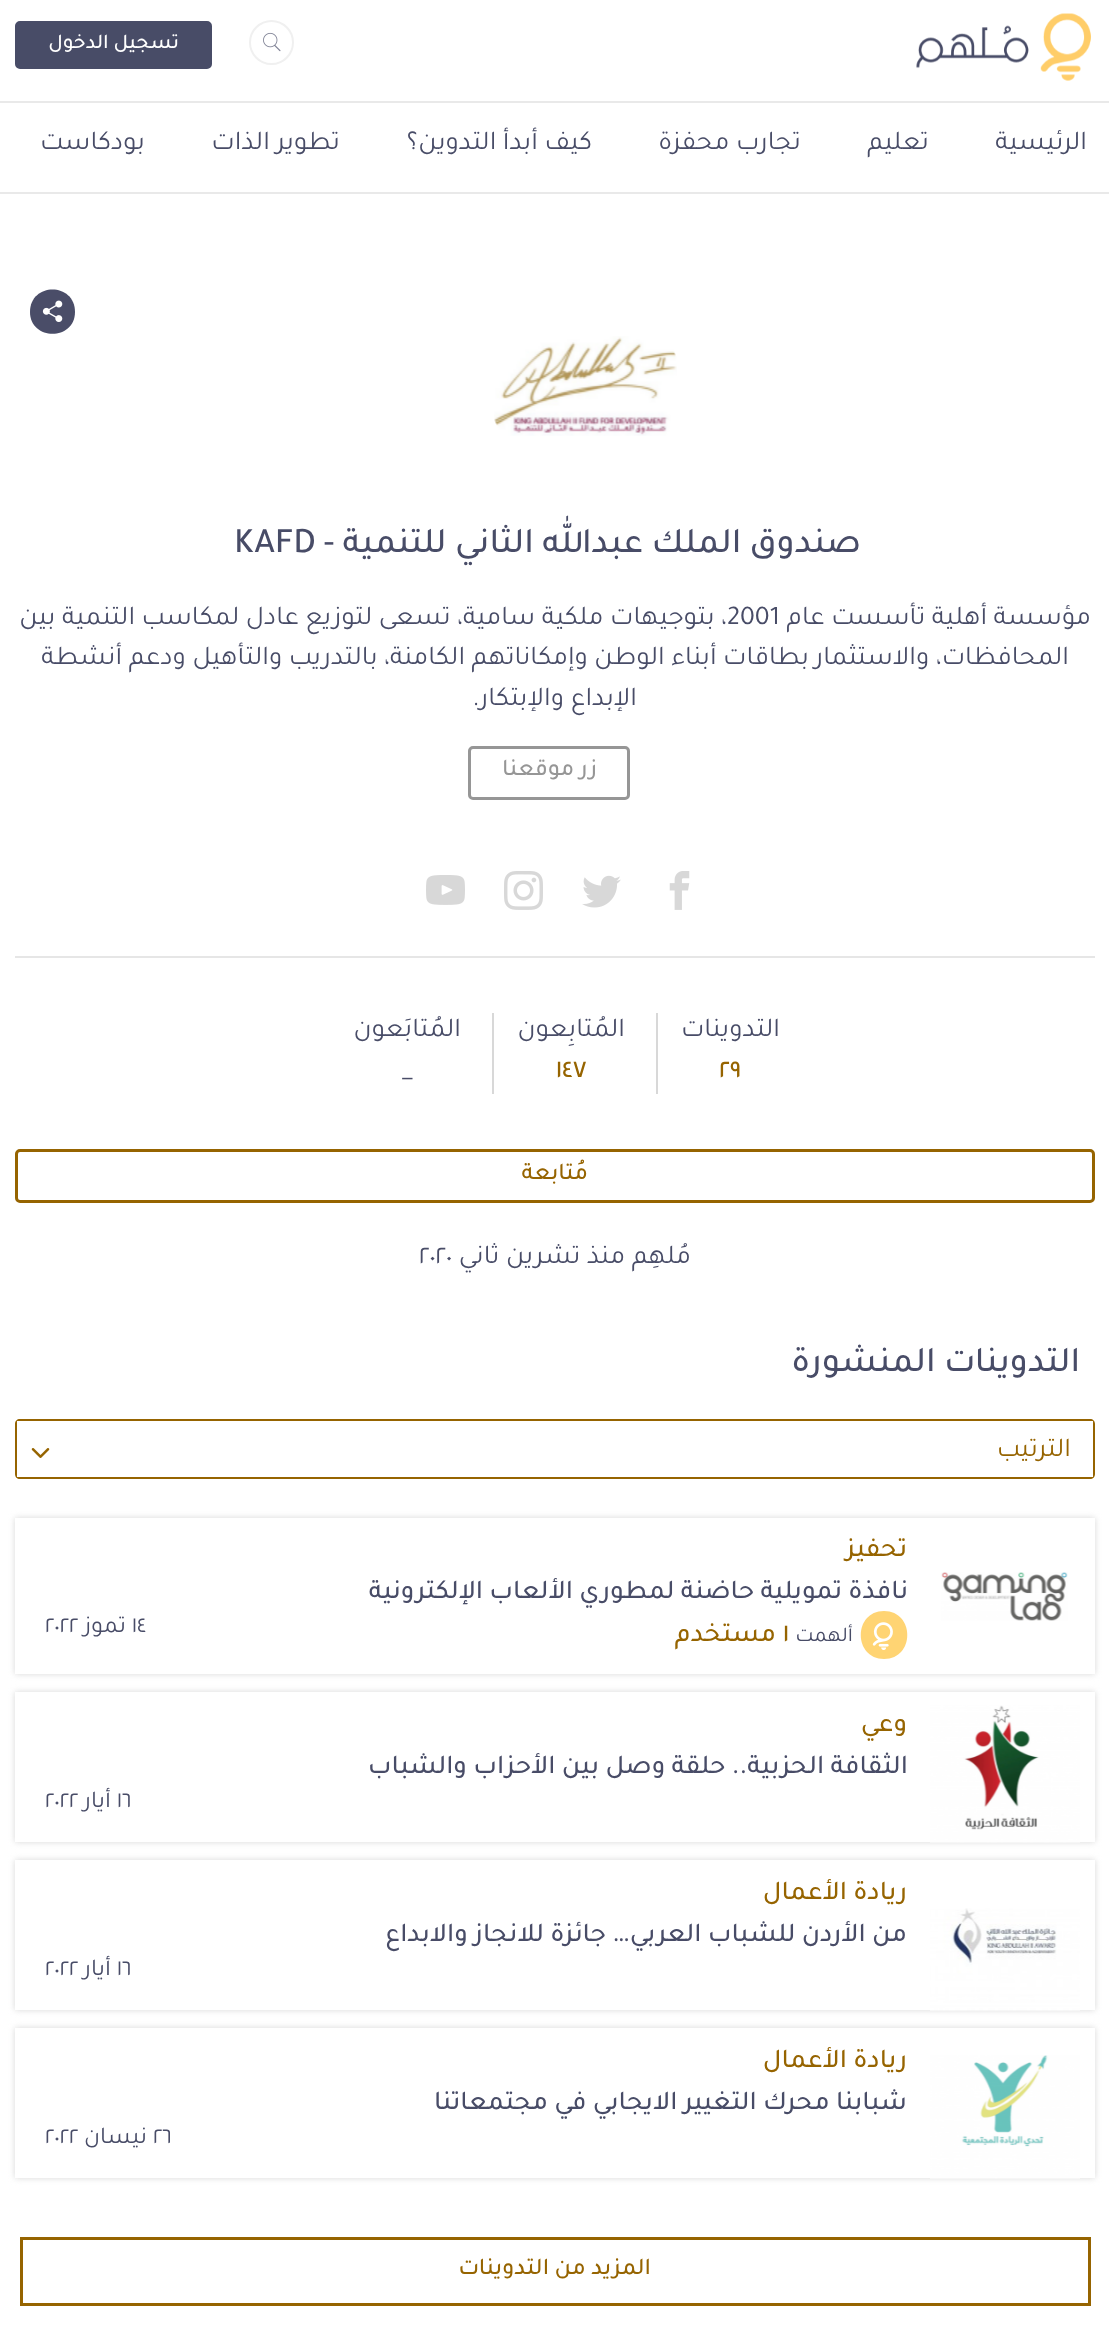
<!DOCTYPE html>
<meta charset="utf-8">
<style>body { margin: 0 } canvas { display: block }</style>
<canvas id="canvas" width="1109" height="2331"></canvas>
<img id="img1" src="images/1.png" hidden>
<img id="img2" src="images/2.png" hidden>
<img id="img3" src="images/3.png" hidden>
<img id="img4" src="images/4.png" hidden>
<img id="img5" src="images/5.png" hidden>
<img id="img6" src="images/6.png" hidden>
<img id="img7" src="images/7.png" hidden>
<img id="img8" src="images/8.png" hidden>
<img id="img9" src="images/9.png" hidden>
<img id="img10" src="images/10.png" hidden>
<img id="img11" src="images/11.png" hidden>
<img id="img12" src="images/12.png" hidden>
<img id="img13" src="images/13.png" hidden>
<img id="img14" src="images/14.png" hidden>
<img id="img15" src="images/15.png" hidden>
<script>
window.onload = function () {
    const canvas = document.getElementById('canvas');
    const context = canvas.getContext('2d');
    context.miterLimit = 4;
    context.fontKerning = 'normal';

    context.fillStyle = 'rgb(255, 255, 255)';
    context.fillRect(0, 0, 1109, 2331);
    context.fillStyle = 'rgb(233, 233, 233)';
    context.fillRect(0, 101, 1109, 2);
    context.drawImage(document.getElementById('img1'), 916, 13, 175, 68);
    context.beginPath();
    context.arc(271.5, 42.5, 21.5, 0, 2 * Math.PI);
    context.strokeStyle = 'rgb(240, 240, 240)';
    context.lineWidth = 2;
    context.stroke();
    context.drawImage(document.getElementById('img2'), 263, 32, 18, 20);
    context.fillStyle = 'rgb(72, 76, 103)';
    context.beginPath();
    context.roundRect(16.5, 22.5, 194, 45, 3.5);
    context.fill();
    context.strokeStyle = 'rgb(72, 76, 103)';
    context.lineWidth = 3;
    context.stroke();
    context.fillStyle = 'rgb(233, 233, 233)';
    context.fillRect(0, 192, 1109, 2);
    context.fillStyle = 'rgb(74, 77, 104)';
    context.beginPath();
    context.moveTo(75, 312);
    context.bezierCurveTo(75, 341, 30, 341, 30, 312);
    context.bezierCurveTo(30, 282, 75, 282, 75, 312);
    context.closePath();
    context.fill();
    context.drawImage(document.getElementById('img3'), 42, 300, 21, 22);
    context.drawImage(document.getElementById('img4'), 494, 336, 183, 100);
    context.beginPath();
    context.roundRect(469.5, 747.5, 159, 51, 3.5);
    context.strokeStyle = 'rgb(150, 150, 150)';
    context.stroke();
    context.drawImage(document.getElementById('img5'), 669, 871, 21, 39);
    context.drawImage(document.getElementById('img6'), 582, 875, 39, 33);
    context.drawImage(document.getElementById('img7'), 504, 871, 39, 39);
    context.drawImage(document.getElementById('img8'), 426, 875, 39, 30);
    context.fillStyle = 'rgb(230, 230, 230)';
    context.fillRect(15, 956, 1080, 2);
    context.fillStyle = 'rgb(216, 216, 216)';
    context.fillRect(656, 1013, 2, 81);
    context.fillRect(492, 1013, 2, 81);
    context.beginPath();
    context.roundRect(16.5, 1150.5, 1077, 51, 3.5);
    context.strokeStyle = 'rgb(150, 100, 0)';
    context.stroke();
    context.fillStyle = 'rgb(150, 100, 0)';
    context.beginPath();
    context.moveTo(20, 1419);
    context.bezierCurveTo(17, 1419, 15, 1421, 15, 1424);
    context.lineTo(15, 1474);
    context.bezierCurveTo(15, 1477, 17, 1479, 20, 1479);
    context.lineTo(1090, 1479);
    context.bezierCurveTo(1093, 1479, 1095, 1477, 1095, 1474);
    context.lineTo(1095, 1424);
    context.bezierCurveTo(1095, 1421, 1093, 1419, 1090, 1419);
    context.closePath();
    context.moveTo(17, 1421);
    context.lineTo(17, 1477);
    context.lineTo(1093, 1477);
    context.lineTo(1093, 1421);
    context.closePath();
    context.fill('evenodd');
    context.drawImage(document.getElementById('img9'), 31, 1448, 19, 10);
    context.save();
    context.beginPath();
    context.moveTo(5, 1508);
    context.lineTo(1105, 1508);
    context.lineTo(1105, 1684);
    context.lineTo(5, 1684);
    context.closePath();
    context.moveTo(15, 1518);
    context.lineTo(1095, 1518);
    context.lineTo(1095, 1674);
    context.lineTo(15, 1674);
    context.closePath();
    context.clip('evenodd');
    context.fillStyle = 'rgb(216, 216, 216)';
    context.filter = 'blur(3px)';
    context.beginPath();
    context.rect(15, 1518, 1080, 156);
    context.fill();
    context.filter = 'none';
    context.restore();
    context.drawImage(document.getElementById('img10'), 941, 1572, 127, 49);
    context.fillStyle = 'rgb(255, 212, 115)';
    context.beginPath();
    context.moveTo(884, 1659);
    context.bezierCurveTo(915, 1659, 915, 1611, 884, 1611);
    context.bezierCurveTo(853, 1611, 853, 1659, 884, 1659);
    context.closePath();
    context.fill();
    context.drawImage(document.getElementById('img11'), 872, 1622, 21, 24);
    context.drawImage(document.getElementById('img12'), 878, 1643, 11, 7);
    context.save();
    context.beginPath();
    context.moveTo(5, 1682);
    context.lineTo(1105, 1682);
    context.lineTo(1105, 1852);
    context.lineTo(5, 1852);
    context.closePath();
    context.moveTo(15, 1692);
    context.lineTo(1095, 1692);
    context.lineTo(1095, 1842);
    context.lineTo(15, 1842);
    context.closePath();
    context.clip('evenodd');
    context.fillStyle = 'rgb(216, 216, 216)';
    context.filter = 'blur(3px)';
    context.beginPath();
    context.rect(15, 1692, 1080, 150);
    context.fill();
    context.filter = 'none';
    context.restore();
    context.drawImage(document.getElementById('img13'), 930, 1705, 150, 138);
    context.save();
    context.beginPath();
    context.moveTo(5, 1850);
    context.lineTo(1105, 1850);
    context.lineTo(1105, 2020);
    context.lineTo(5, 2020);
    context.closePath();
    context.moveTo(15, 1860);
    context.lineTo(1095, 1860);
    context.lineTo(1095, 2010);
    context.lineTo(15, 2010);
    context.closePath();
    context.clip('evenodd');
    context.fillStyle = 'rgb(216, 216, 216)';
    context.filter = 'blur(3px)';
    context.beginPath();
    context.rect(15, 1860, 1080, 150);
    context.fill();
    context.filter = 'none';
    context.restore();
    context.drawImage(document.getElementById('img14'), 930, 1908, 150, 103);
    context.save();
    context.beginPath();
    context.moveTo(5, 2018);
    context.lineTo(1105, 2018);
    context.lineTo(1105, 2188);
    context.lineTo(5, 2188);
    context.closePath();
    context.moveTo(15, 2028);
    context.lineTo(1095, 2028);
    context.lineTo(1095, 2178);
    context.lineTo(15, 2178);
    context.closePath();
    context.clip('evenodd');
    context.fillStyle = 'rgb(216, 216, 216)';
    context.filter = 'blur(3px)';
    context.beginPath();
    context.rect(15, 2028, 1080, 150);
    context.fill();
    context.filter = 'none';
    context.restore();
    context.drawImage(document.getElementById('img15'), 930, 2055, 150, 124);
    context.strokeRect(21.5, 2238.5, 1068, 66);
    context.direction = 'rtl';
    context.font = '500 21px Tajawal';
    context.fillStyle = 'rgb(255, 255, 255)';
    context.fillText('تسجيل الدخول', 179, 48);
    context.font = '27px Tajawal';
    context.fillStyle = 'rgb(72, 76, 103)';
    context.fillText('الرئيسية', 1087, 149);
    context.fillText('تعليم', 929, 149);
    context.fillText('تجارب محفزة', 801, 149);
    context.fillText('كيف أبدأ التدوين؟', 592, 149);
    context.fillText('تطوير الذات', 340, 149);
    context.fillText('بودكاست', 145, 149);
    context.font = '500 36px Tajawal';
    context.fillText('صندوق الملك عبدالله الثاني للتنمية -', 861, 552);
    context.direction = 'ltr';
    context.fillText('KAFD', 234, 552);
    context.direction = 'rtl';
    context.font = '27px Tajawal';
    context.fillText('مؤسسة أهلية تأسست عام', 1091, 624);
    context.direction = 'ltr';
    context.fillText('2001', 727, 624);
    context.direction = 'rtl';
    context.fillText('، بتوجيهات ملكية سامية، تسعى لتوزيع عادل لمكاسب التنمية بين', 727, 624);
    context.fillText('المحافظات، والاستثمار', 1069, 664);
    context.fillText('بطاقات أبناء الوطن وإمكاناتهم الكامنة، بالتدريب والتأهيل ودعم أنشطة', 809, 664);
    context.fillText('الإبداع والإبتكار.', 637, 705);
    context.font = '500 24px Tajawal';
    context.fillStyle = 'rgb(150, 150, 150)';
    context.fillText('زر موقعنا', 597, 775);
    context.font = '27px Tajawal';
    context.fillStyle = 'rgb(72, 76, 103)';
    context.fillText('التدوينات', 780, 1036);
    context.direction = 'ltr';
    context.font = '500 27px Tajawal';
    context.fillStyle = 'rgb(150, 100, 0)';
    context.fillText('٢٩', 719, 1077);
    context.direction = 'rtl';
    context.font = '27px Tajawal';
    context.fillStyle = 'rgb(72, 76, 103)';
    context.fillText('المُتابِعون', 625, 1036);
    context.direction = 'ltr';
    context.font = '500 27px Tajawal';
    context.fillStyle = 'rgb(150, 100, 0)';
    context.fillText('١٤٧', 556, 1077);
    context.direction = 'rtl';
    context.font = '27px Tajawal';
    context.fillStyle = 'rgb(72, 76, 103)';
    context.fillText('المُتابَعون', 461, 1036);
    context.direction = 'ltr';
    context.fillText('_', 402, 1077);
    context.direction = 'rtl';
    context.font = '500 24px Tajawal';
    context.fillStyle = 'rgb(150, 100, 0)';
    context.fillText('مُتابعة', 588, 1179);
    context.font = '27px Tajawal';
    context.fillStyle = 'rgb(72, 76, 103)';
    context.fillText('مُلهِم منذ تشرين ثاني', 691, 1263);
    context.direction = 'ltr';
    context.fillText('٢٠٢٠', 419, 1263);
    context.direction = 'rtl';
    context.font = '500 36px Tajawal';
    context.fillText('التدوينات المنشورة', 1080, 1371);
    context.font = '27px Tajawal';
    context.fillStyle = 'rgb(150, 100, 0)';
    context.fillText('الترتيب', 1071, 1456);
    context.font = '500 27px Tajawal';
    context.fillText('تحفيز', 907, 1556);
    context.fillStyle = 'rgb(72, 76, 103)';
    context.fillText('نافذة تمويلية حاضنة لمطوري الألعاب الإلكترونية', 908, 1598);
    context.font = '21px Tajawal';
    context.fillText('ألهمت', 853, 1641);
    context.direction = 'ltr';
    context.font = '500 27px Tajawal';
    context.fillStyle = 'rgb(150, 100, 0)';
    context.fillText('١', 783, 1641);
    context.direction = 'rtl';
    context.fillText('مستخدم', 776, 1641);
    context.direction = 'ltr';
    context.font = '24px Tajawal';
    context.fillStyle = 'rgb(72, 76, 103)';
    context.fillText('١٤', 132, 1632);
    context.direction = 'rtl';
    context.fillText('تموز', 126, 1632);
    context.direction = 'ltr';
    context.fillText('٢٠٢٢', 45, 1632);
    context.direction = 'rtl';
    context.font = '500 27px Tajawal';
    context.fillStyle = 'rgb(150, 100, 0)';
    context.fillText('وعي', 907, 1731);
    context.fillStyle = 'rgb(72, 76, 103)';
    context.fillText('الثقافة الحزبية.. حلقة وصل بين الأحزاب والشباب', 908, 1773);
    context.direction = 'ltr';
    context.font = '24px Tajawal';
    context.fillText('١٦', 117, 1807);
    context.direction = 'rtl';
    context.fillText('أيار', 111, 1807);
    context.direction = 'ltr';
    context.fillText('٢٠٢٢', 45, 1807);
    context.direction = 'rtl';
    context.font = '500 27px Tajawal';
    context.fillStyle = 'rgb(150, 100, 0)';
    context.fillText('ريادة الأعمال', 907, 1899);
    context.fillStyle = 'rgb(72, 76, 103)';
    context.fillText('من الأردن للشباب العربي… جائزة للانجاز والابداع', 907, 1941);
    context.direction = 'ltr';
    context.font = '24px Tajawal';
    context.fillText('١٦', 117, 1975);
    context.direction = 'rtl';
    context.fillText('أيار', 111, 1975);
    context.direction = 'ltr';
    context.fillText('٢٠٢٢', 45, 1975);
    context.direction = 'rtl';
    context.font = '500 27px Tajawal';
    context.fillStyle = 'rgb(150, 100, 0)';
    context.fillText('ريادة الأعمال', 907, 2067);
    context.fillStyle = 'rgb(72, 76, 103)';
    context.fillText('شبابنا محرك التغيير الايجابي في مجتمعاتنا', 907, 2109);
    context.direction = 'ltr';
    context.font = '24px Tajawal';
    context.fillText('٢٦', 153, 2143);
    context.direction = 'rtl';
    context.fillText('نيسان', 147, 2143);
    context.direction = 'ltr';
    context.fillText('٢٠٢٢', 45, 2143);
    context.direction = 'rtl';
    context.font = '500 24px Tajawal';
    context.fillStyle = 'rgb(150, 100, 0)';
    context.fillText('المزيد من التدوينات', 651, 2274);
};
</script>
